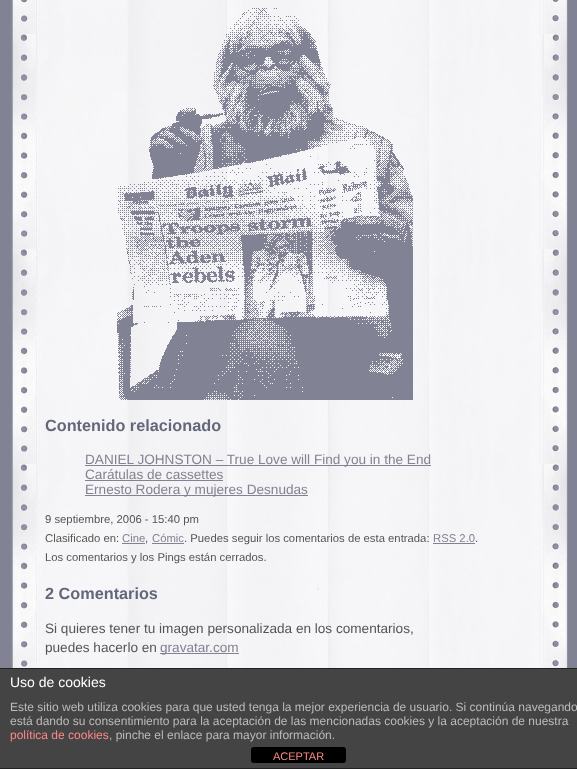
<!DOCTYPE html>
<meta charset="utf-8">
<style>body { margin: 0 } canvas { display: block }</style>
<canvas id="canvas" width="577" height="769"></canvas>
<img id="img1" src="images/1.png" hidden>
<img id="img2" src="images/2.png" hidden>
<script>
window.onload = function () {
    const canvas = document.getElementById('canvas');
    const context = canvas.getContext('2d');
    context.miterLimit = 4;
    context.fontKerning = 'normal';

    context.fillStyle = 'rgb(255, 255, 255)';
    context.fillRect(0, 0, 577, 769);
    context.drawImage(document.getElementById('img1'), 0, 0, 577, 668);
    context.drawImage(document.getElementById('img2'), 117, 8, 296, 392);
    context.fillStyle = 'rgb(131, 130, 146)';
    context.fillRect(85, 465, 346, 1);
    context.fillRect(85, 480, 138, 1);
    context.fillRect(85, 495, 223, 1);
    context.fillRect(122, 543, 23, 1);
    context.fillRect(152, 543, 32, 1);
    context.fillRect(433, 543, 42, 1);
    context.fillRect(160, 653, 79, 1);
    context.fillStyle = 'rgb(68, 68, 68)';
    context.fillRect(0, 669, 577, 99);
    context.fillStyle = 'rgb(34, 34, 34)';
    context.fillRect(0, 668, 577, 1);
    context.fillRect(0, 768, 577, 1);
    context.fillStyle = 'rgb(0, 0, 0)';
    context.beginPath();
    context.roundRect(251, 747, 95, 16, 3);
    context.fill();
    context.font = 'bold 16.25px Liberation Sans';
    context.fillStyle = 'rgb(100, 103, 122)';
    context.fillText('Contenido relacionado', 45, 431);
    context.font = '13.6px Liberation Sans';
    context.fillStyle = 'rgb(131, 130, 146)';
    context.fillText('DANIEL JOHNSTON – True Love will Find you in the End', 85, 464);
    context.fillText('Carátulas de cassettes', 85, 479);
    context.fillText('Ernesto Rodera y mujeres Desnudas', 85, 494);
    context.font = '11.3px Liberation Sans';
    context.fillStyle = 'rgb(85, 85, 85)';
    context.fillText('9 septiembre, 2006 - 15:40 pm', 45, 523);
    context.fillText('Clasificado en:', 45, 542);
    context.fillStyle = 'rgb(131, 130, 146)';
    context.fillText('Cine', 122, 542);
    context.fillStyle = 'rgb(85, 85, 85)';
    context.fillText(',', 145, 542);
    context.fillStyle = 'rgb(131, 130, 146)';
    context.fillText('Cómic', 152, 542);
    context.fillStyle = 'rgb(85, 85, 85)';
    context.fillText('. Puedes seguir los comentarios de esta entrada:', 184, 542);
    context.fillStyle = 'rgb(131, 130, 146)';
    context.fillText('RSS 2.0', 433, 542);
    context.fillStyle = 'rgb(85, 85, 85)';
    context.fillText('.', 475, 542);
    context.fillText('Los comentarios y los Pings están cerrados.', 45, 561);
    context.font = 'bold 16.25px Liberation Sans';
    context.fillStyle = 'rgb(100, 103, 122)';
    context.fillText('2 Comentarios', 45, 599);
    context.font = '13.6px Liberation Sans';
    context.fillStyle = 'rgb(85, 85, 85)';
    context.fillText('Si quieres tener tu imagen personalizada en los comentarios,', 45, 633);
    context.fillText('puedes hacerlo en', 45, 652);
    context.fillStyle = 'rgb(131, 130, 146)';
    context.fillText('gravatar.com', 160, 652);
    context.font = '14px Liberation Sans';
    context.fillStyle = 'rgb(255, 255, 255)';
    context.fillText('Uso de cookies', 10, 687);
    context.font = '12px Liberation Sans';
    context.fillStyle = 'rgb(187, 187, 187)';
    context.fillText('Este sitio web utiliza cookies para que usted tenga la mejor experiencia de usuario. Si continúa navegando', 10, 711);
    context.fillText('está dando su consentimiento para la aceptación de las mencionadas cookies y la aceptación de nuestra', 10, 725);
    context.fillStyle = 'rgb(255, 136, 136)';
    context.fillText('política de cookies', 10, 739);
    context.fillStyle = 'rgb(187, 187, 187)';
    context.fillText(', pinche el enlace para mayor información.', 109, 739);
    context.font = '11px Liberation Sans';
    context.fillStyle = 'rgb(255, 136, 136)';
    context.fillText('ACEPTAR', 273, 760);
};
</script>
